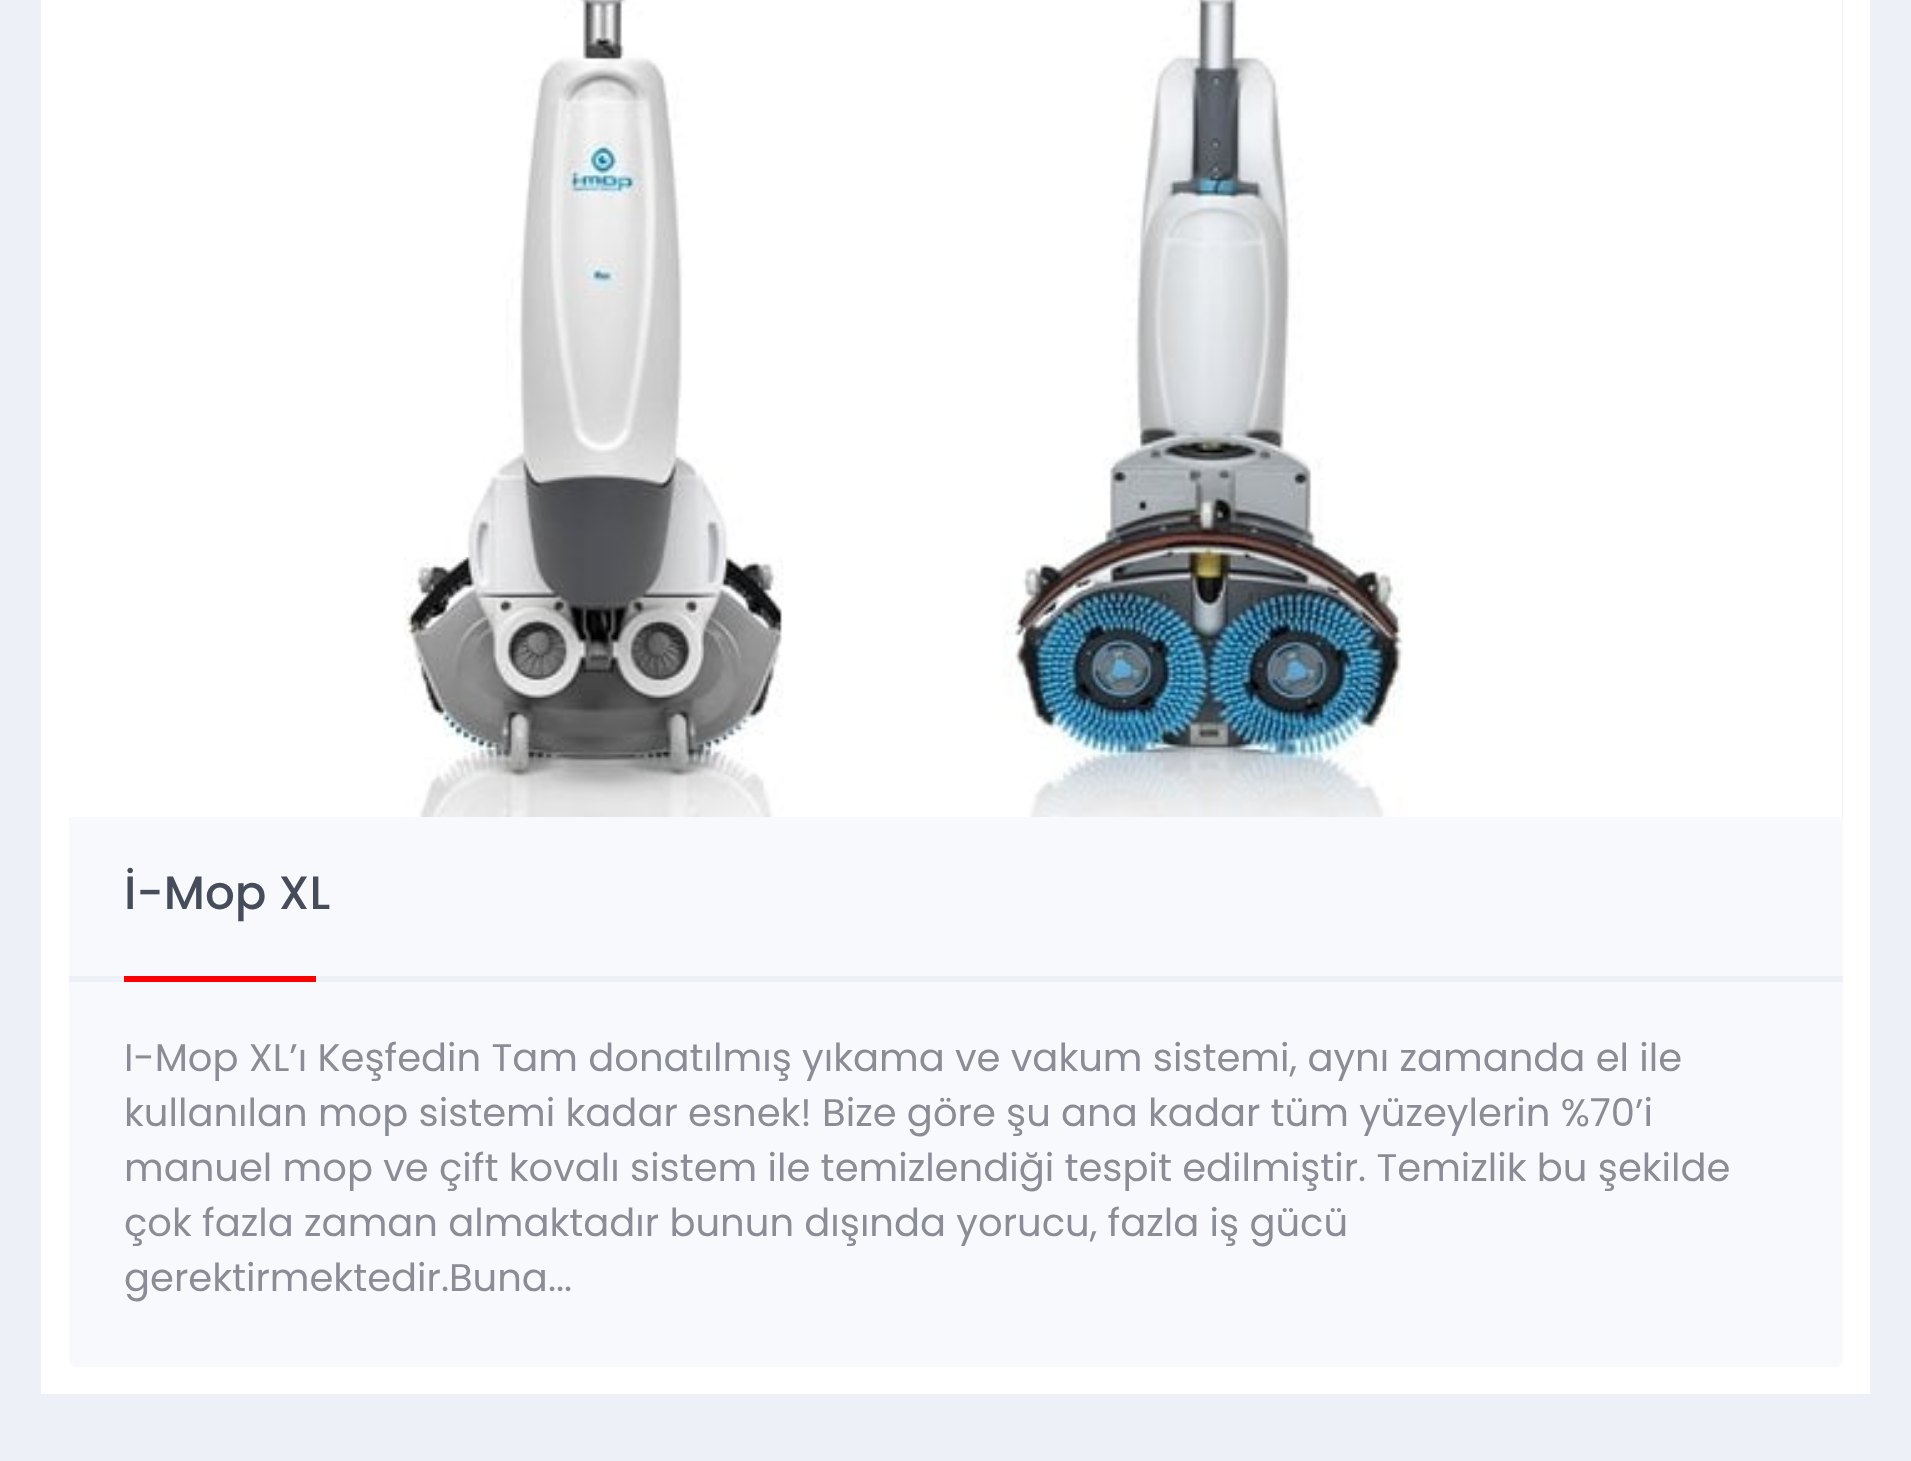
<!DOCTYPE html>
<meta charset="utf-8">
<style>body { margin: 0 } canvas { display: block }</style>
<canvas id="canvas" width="1911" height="1461"></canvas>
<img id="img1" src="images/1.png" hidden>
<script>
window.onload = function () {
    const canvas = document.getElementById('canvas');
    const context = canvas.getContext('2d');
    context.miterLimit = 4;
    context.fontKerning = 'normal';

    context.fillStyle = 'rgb(237, 240, 247)';
    context.fillRect(0, 0, 1911, 1461);
    context.fillStyle = 'rgb(255, 255, 255)';
    context.fillRect(41, 0, 1829, 1394);
    context.fillStyle = 'rgb(248, 249, 253)';
    context.beginPath();
    context.roundRect(69, -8, 1774, 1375, 8);
    context.fill();
    context.fillStyle = 'rgb(240, 240, 240)';
    context.fillRect(1842, 0, 1, 817);
    context.drawImage(document.getElementById('img1'), 69, 0, 1773, 817);
    context.fillStyle = 'rgb(237, 240, 247)';
    context.fillRect(69, 976, 1774, 6);
    context.fillStyle = 'rgb(255, 0, 0)';
    context.fillRect(124, 976, 192, 6);
    context.font = '500 46.75px Poppins';
    context.fillStyle = 'rgb(70, 76, 89)';
    context.fillText('İ-Mop XL', 124, 909);
    context.font = '38.5px Poppins';
    context.fillStyle = 'rgb(138, 141, 149)';
    context.fillText('I-Mop XL’ı Keşfedin Tam donatılmış yıkama ve vakum sistemi, aynı zamanda el ile', 124, 1071);
    context.fillText('kullanılan mop sistemi kadar esnek! Bize göre şu ana kadar tüm yüzeylerin %70’i', 124, 1126);
    context.fillText('manuel mop ve çift kovalı sistem ile temizlendiği tespit edilmiştir. Temizlik bu şekilde', 124, 1181);
    context.fillText('çok fazla zaman almaktadır bunun dışında yorucu, fazla iş gücü', 124, 1236);
    context.fillText('gerektirmektedir.Buna...', 124, 1291);
};
</script>
